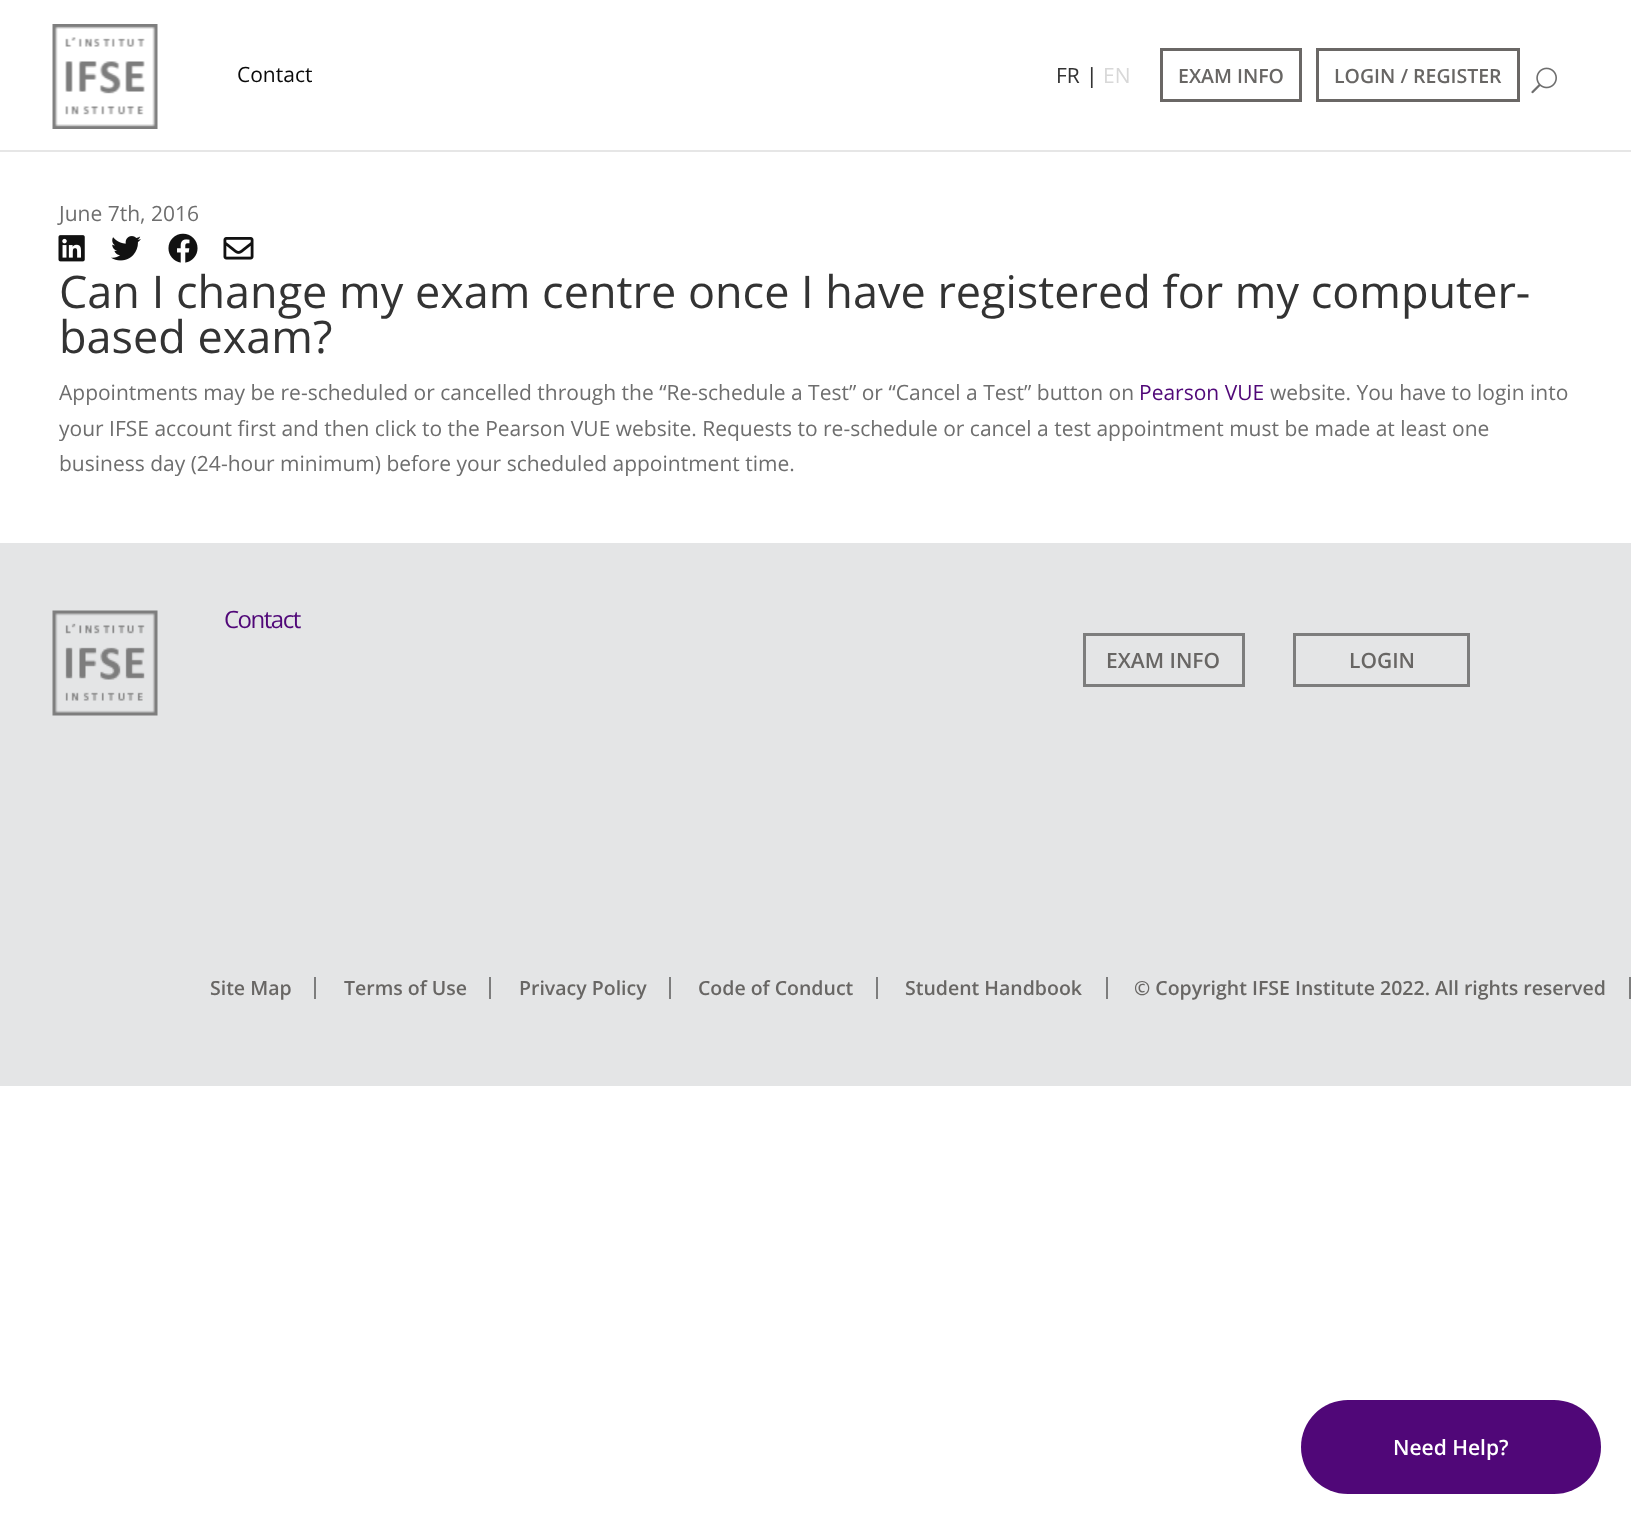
<!DOCTYPE html>
<meta charset="utf-8">
<style>body { margin: 0 } canvas { display: block }</style>
<canvas id="canvas" width="1631" height="1539"></canvas>
<img id="img1" src="images/1.png" hidden>
<img id="img2" src="images/2.png" hidden>
<img id="img3" src="images/3.png" hidden>
<img id="img4" src="images/4.png" hidden>
<img id="img5" src="images/5.png" hidden>
<img id="img6" src="images/6.png" hidden>
<img id="img7" src="images/7.png" hidden>
<script>
window.onload = function () {
    const canvas = document.getElementById('canvas');
    const context = canvas.getContext('2d');
    context.miterLimit = 4;
    context.fontKerning = 'normal';

    context.fillStyle = 'rgb(255, 255, 255)';
    context.fillRect(0, 0, 1631, 1539);
    context.fillStyle = 'rgb(230, 230, 230)';
    context.fillRect(0, 150, 1631, 2);
    context.drawImage(document.getElementById('img1'), 52, 24, 106, 105);
    context.strokeStyle = 'rgb(106, 103, 101)';
    context.lineWidth = 3;
    context.strokeRect(1161.5, 49.5, 139, 51);
    context.strokeRect(1317.5, 49.5, 201, 51);
    context.drawImage(document.getElementById('img2'), 1531, 67, 26, 27);
    context.fillStyle = 'rgb(80, 7, 120)';
    context.beginPath();
    context.roundRect(1301, 1400, 300, 94, 47);
    context.fill();
    context.drawImage(document.getElementById('img3'), 58, 235, 27, 27);
    context.drawImage(document.getElementById('img4'), 111, 236, 30, 25);
    context.drawImage(document.getElementById('img5'), 168, 233, 30, 30);
    context.drawImage(document.getElementById('img6'), 223, 237, 31, 23);
    context.fillStyle = 'rgb(228, 229, 230)';
    context.fillRect(0, 543, 1631, 543);
    context.drawImage(document.getElementById('img7'), 52, 610, 106, 106);
    context.strokeStyle = 'rgb(125, 125, 125)';
    context.strokeRect(1084.5, 634.5, 159, 51);
    context.strokeRect(1294.5, 634.5, 174, 51);
    context.fillStyle = 'rgb(125, 125, 125)';
    context.fillRect(314, 977, 2, 22);
    context.fillRect(489, 977, 2, 22);
    context.fillRect(669, 977, 2, 22);
    context.fillRect(876, 977, 2, 22);
    context.fillRect(1106, 977, 2, 22);
    context.fillRect(1629, 977, 2, 22);
    context.font = '21px Open Sans';
    context.fillStyle = 'rgb(10, 10, 10)';
    context.fillText('Contact', 237, 82);
    context.fillStyle = 'rgb(51, 51, 51)';
    context.fillText('FR', 1056, 83);
    context.font = '500 21px Open Sans';
    context.fillText('|', 1086, 83);
    context.font = '21px Open Sans';
    context.fillStyle = 'rgb(216, 216, 216)';
    context.fillText('EN', 1103, 83);
    context.font = '600 19.5px Open Sans';
    context.fillStyle = 'rgb(104, 102, 100)';
    context.fillText('EXAM INFO', 1178, 83);
    context.fillText('LOGIN / REGISTER', 1334, 83);
    context.font = '600 21px Open Sans';
    context.fillStyle = 'rgb(255, 255, 255)';
    context.fillText('Need Help?', 1393, 1455);
    context.font = '21px Open Sans';
    context.fillStyle = 'rgb(110, 110, 110)';
    context.fillText('June 7th, 2016', 59, 221);
    context.font = '45px Open Sans';
    context.fillStyle = 'rgb(51, 51, 51)';
    context.fillText('Can I change my exam centre once I have registered for my computer-', 59, 308);
    context.fillText('based exam?', 59, 353);
    context.font = '21px Open Sans';
    context.fillStyle = 'rgb(110, 110, 110)';
    context.fillText('Appointments may be re-scheduled or cancelled through the “Re-schedule a Test” or “Cancel a Test” button on', 59, 400);
    context.fillStyle = 'rgb(80, 7, 120)';
    context.fillText('Pearson VUE', 1139, 400);
    context.fillStyle = 'rgb(110, 110, 110)';
    context.fillText('website. You have to login into', 1270, 400);
    context.fillText('your IFSE account first and then click to the Pearson VUE website. Requests to re-schedule or cancel a test appointment must be made at least one', 59, 436);
    context.fillText('business day (24-hour minimum) before your scheduled appointment time.', 59, 471);
    context.letterSpacing = '-1.5px';
    context.font = '24px Open Sans';
    context.fillStyle = 'rgb(80, 7, 120)';
    context.fillText('Contact', 224, 628);
    context.letterSpacing = '0px';
    context.font = '600 21px Open Sans';
    context.fillStyle = 'rgb(104, 102, 100)';
    context.fillText('EXAM INFO', 1106, 668);
    context.fillText('LOGIN', 1349, 668);
    context.font = '600 19.5px Open Sans';
    context.fillText('Site Map', 210, 995);
    context.fillText('Terms of Use', 344, 995);
    context.fillText('Privacy Policy', 519, 995);
    context.fillText('Code of Conduct', 698, 995);
    context.fillText('Student Handbook', 905, 995);
    context.fillText('© Copyright IFSE Institute 2022. All rights reserved', 1134, 995);
};
</script>
